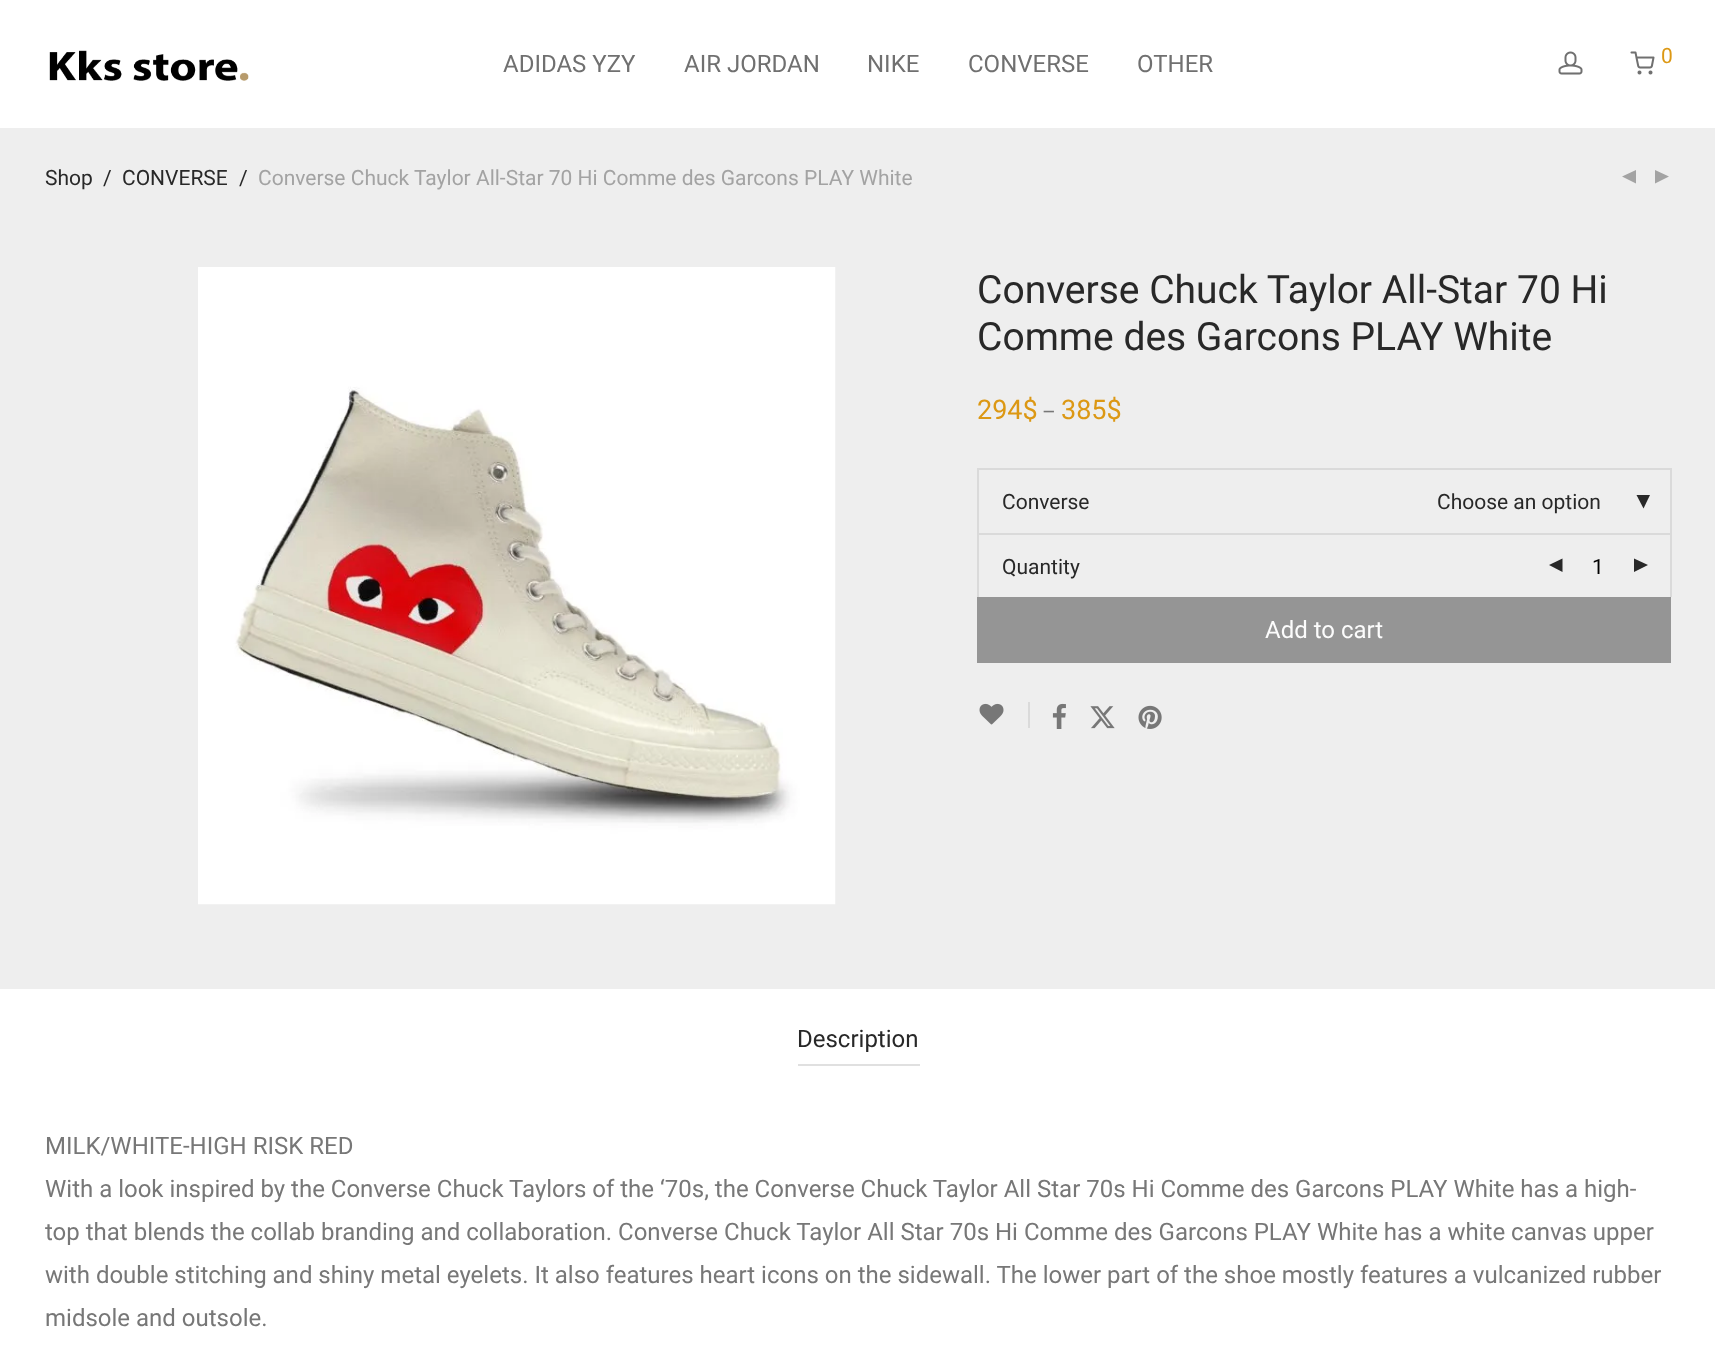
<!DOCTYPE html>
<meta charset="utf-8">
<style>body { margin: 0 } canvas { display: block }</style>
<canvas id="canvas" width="1715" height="1351"></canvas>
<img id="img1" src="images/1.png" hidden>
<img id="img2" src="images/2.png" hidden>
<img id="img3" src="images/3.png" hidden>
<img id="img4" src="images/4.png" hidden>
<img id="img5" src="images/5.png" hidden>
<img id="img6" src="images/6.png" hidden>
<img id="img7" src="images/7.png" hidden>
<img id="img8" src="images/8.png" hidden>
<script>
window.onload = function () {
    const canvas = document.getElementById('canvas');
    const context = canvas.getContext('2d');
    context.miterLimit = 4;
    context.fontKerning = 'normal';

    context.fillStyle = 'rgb(255, 255, 255)';
    context.fillRect(0, 0, 1715, 1351);
    context.drawImage(document.getElementById('img1'), 49, 50, 200, 31);
    context.drawImage(document.getElementById('img2'), 1558, 51, 25, 24);
    context.drawImage(document.getElementById('img3'), 1630, 51, 25, 24);
    context.fillStyle = 'rgb(238, 238, 238)';
    context.fillRect(0, 128, 1715, 861);
    context.fillStyle = 'rgb(163, 163, 163)';
    context.beginPath();
    context.moveTo(1636, 170);
    context.lineTo(1636, 183.5);
    context.lineTo(1622, 176.5);
    context.closePath();
    context.moveTo(1655, 170);
    context.lineTo(1655, 183.5);
    context.lineTo(1669, 176.5);
    context.closePath();
    context.fill();
    context.drawImage(document.getElementById('img4'), 198, 267, 638, 638);
    context.fillStyle = 'rgb(218, 218, 218)';
    context.fillRect(977, 468, 694, 2);
    context.fillRect(977, 533, 285, 2);
    context.fillRect(977, 468, 2, 129);
    context.fillRect(1670, 468, 2, 66);
    context.fillRect(1262, 533, 409, 2);
    context.fillStyle = 'rgb(40, 40, 40)';
    context.beginPath();
    context.moveTo(1650, 495);
    context.lineTo(1636.5, 495);
    context.lineTo(1643.5, 508.5);
    context.closePath();
    context.fill();
    context.fillStyle = 'rgb(218, 218, 218)';
    context.fillRect(1670, 533, 2, 64);
    context.fillStyle = 'rgb(40, 40, 40)';
    context.beginPath();
    context.moveTo(1562.5, 558.5);
    context.lineTo(1562.5, 572);
    context.lineTo(1549, 565);
    context.closePath();
    context.fill();
    context.beginPath();
    context.moveTo(1634, 558.5);
    context.lineTo(1634, 572);
    context.lineTo(1648, 565);
    context.closePath();
    context.fill();
    context.fillStyle = 'rgb(149, 149, 149)';
    context.fillRect(977, 597, 694, 66);
    context.fillStyle = 'rgb(218, 218, 218)';
    context.fillRect(1028, 702, 2, 26);
    context.drawImage(document.getElementById('img5'), 979, 703, 25, 22);
    context.drawImage(document.getElementById('img6'), 1052, 703, 14, 26);
    context.drawImage(document.getElementById('img7'), 1090, 706, 25, 23);
    context.drawImage(document.getElementById('img8'), 1138, 705, 24, 24);
    context.fillStyle = 'rgb(224, 224, 224)';
    context.fillRect(798, 1064, 122, 2);
    context.font = '24px Roboto';
    context.fillStyle = 'rgb(112, 112, 112)';
    context.fillText('ADIDAS YZY', 503, 72);
    context.fillText('AIR JORDAN', 684, 72);
    context.fillText('NIKE', 867, 72);
    context.fillText('CONVERSE', 968, 72);
    context.fillText('OTHER', 1137, 72);
    context.font = '21px Roboto';
    context.fillStyle = 'rgb(220, 152, 20)';
    context.fillText('0', 1661, 63);
    context.fillStyle = 'rgb(40, 40, 40)';
    context.fillText('Shop', 45, 185);
    context.fillText('/', 103, 185);
    context.fillText('CONVERSE', 122, 185);
    context.fillText('/', 239, 185);
    context.fillStyle = 'rgb(163, 163, 163)';
    context.fillText('Converse Chuck Taylor All-Star 70 Hi Comme des Garcons PLAY White', 258, 185);
    context.font = '39px Roboto';
    context.fillStyle = 'rgb(40, 40, 40)';
    context.fillText('Converse Chuck Taylor All-Star 70 Hi', 977, 303);
    context.fillText('Comme des Garcons PLAY White', 977, 350);
    context.font = '27px Roboto';
    context.fillStyle = 'rgb(220, 152, 20)';
    context.fillText('294$', 977, 419);
    context.font = '21px Roboto';
    context.fillStyle = 'rgb(119, 119, 119)';
    context.fillText('–', 1042, 419);
    context.font = '27px Roboto';
    context.fillStyle = 'rgb(220, 152, 20)';
    context.fillText('385$', 1061, 419);
    context.font = '21px Roboto';
    context.fillStyle = 'rgb(40, 40, 40)';
    context.fillText('Converse', 1002, 509);
    context.fillText('Choose an option', 1437, 509);
    context.fillText('Quantity', 1002, 574);
    context.fillStyle = 'rgb(0, 0, 0)';
    context.fillText('1', 1592, 574);
    context.font = '24px Roboto';
    context.fillStyle = 'rgb(252, 252, 252)';
    context.fillText('Add to cart', 1265, 638);
    context.fillStyle = 'rgb(40, 40, 40)';
    context.fillText('Description', 797, 1047);
    context.fillStyle = 'rgb(119, 119, 119)';
    context.fillText('MILK/WHITE-HIGH RISK RED', 45, 1154);
    context.fillText('With a look inspired by the Converse Chuck Taylors of the ‘70s, the Converse Chuck Taylor All Star 70s Hi Comme des Garcons PLAY White has a high-', 45, 1197);
    context.fillText('top that blends the collab branding and collaboration. Converse Chuck Taylor All Star 70s Hi Comme des Garcons PLAY White has a white canvas upper', 45, 1240);
    context.fillText('with double stitching and shiny metal eyelets. It also features heart icons on the sidewall. The lower part of the shoe mostly features a vulcanized rubber', 45, 1283);
    context.fillText('midsole and outsole.', 45, 1326);
};
</script>
